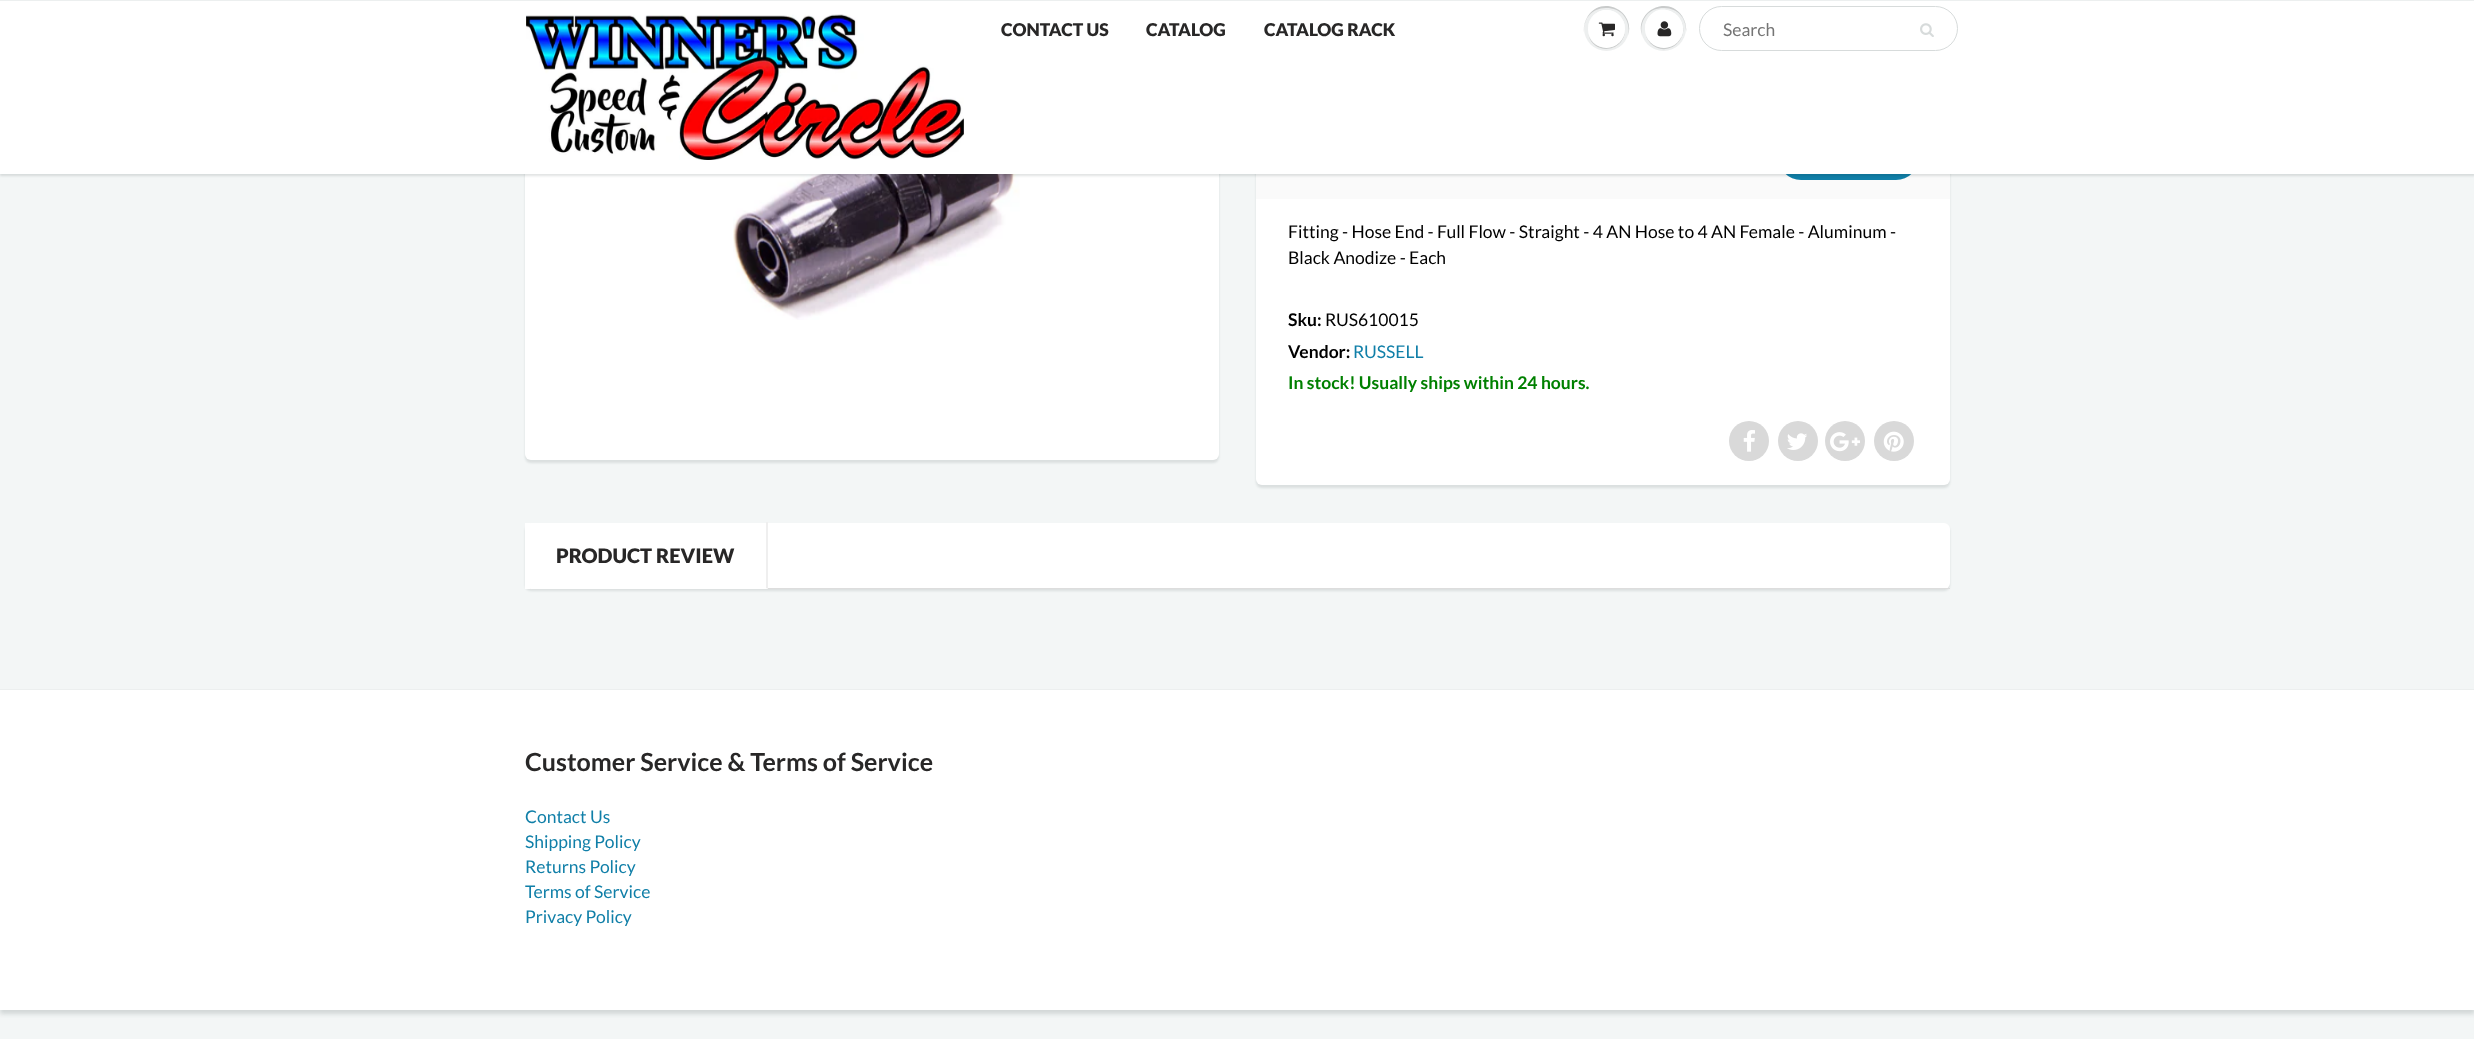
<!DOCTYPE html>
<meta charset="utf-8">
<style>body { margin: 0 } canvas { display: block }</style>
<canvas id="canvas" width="2474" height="1039"></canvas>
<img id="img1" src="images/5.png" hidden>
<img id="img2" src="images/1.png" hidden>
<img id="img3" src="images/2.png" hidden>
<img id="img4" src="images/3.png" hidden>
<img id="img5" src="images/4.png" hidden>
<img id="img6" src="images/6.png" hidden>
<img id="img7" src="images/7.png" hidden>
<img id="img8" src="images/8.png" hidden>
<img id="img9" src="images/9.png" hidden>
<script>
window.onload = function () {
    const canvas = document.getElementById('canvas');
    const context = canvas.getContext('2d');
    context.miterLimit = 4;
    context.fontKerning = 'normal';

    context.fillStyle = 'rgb(255, 255, 255)';
    context.fillRect(0, 0, 2474, 1039);
    context.fillStyle = 'rgb(243, 246, 246)';
    context.fillRect(0, 174, 2474, 515);
    context.fillStyle = 'rgba(11, 25, 28, 0.1)';
    context.filter = 'blur(1px)';
    context.beginPath();
    context.roundRect(525, -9, 694, 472, 6);
    context.fill();
    context.filter = 'none';
    context.fillStyle = 'rgb(255, 255, 255)';
    context.beginPath();
    context.roundRect(525, -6, 694, 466, 6);
    context.fill();
    context.drawImage(document.getElementById('img1'), 733, 174, 287, 146);
    context.fillStyle = 'rgba(11, 25, 28, 0.1)';
    context.filter = 'blur(1px)';
    context.beginPath();
    context.roundRect(1256, -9, 694, 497, 6);
    context.fill();
    context.filter = 'none';
    context.fillStyle = 'rgb(255, 255, 255)';
    context.beginPath();
    context.roundRect(1256, -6, 694, 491, 6);
    context.fill();
    context.fillStyle = 'rgb(250, 250, 250)';
    context.fillRect(1256, 174, 694, 25);
    context.fillStyle = 'rgb(16, 127, 168)';
    context.beginPath();
    context.roundRect(1778, 130, 141, 50, 23);
    context.fill();
    context.fillStyle = 'rgba(11, 25, 28, 0.12)';
    context.filter = 'blur(1px)';
    context.beginPath();
    context.rect(0, 3, 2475, 173);
    context.fill();
    context.filter = 'none';
    context.fillStyle = 'rgb(255, 255, 255)';
    context.fillRect(0, 1, 2474, 173);
    context.fillStyle = 'rgb(236, 239, 239)';
    context.fillRect(0, 0, 2474, 1);
    context.drawImage(document.getElementById('img2'), 526, 14, 438, 146);
    context.fillStyle = 'rgb(237, 239, 239)';
    context.beginPath();
    context.arc(1606.5, 28.5, 22.5, 0, 2 * Math.PI);
    context.fill();
    context.fillStyle = 'rgb(201, 203, 203)';
    context.beginPath();
    context.moveTo(1606, 8);
    context.bezierCurveTo(1624, 8, 1631, 23, 1628, 36);
    context.bezierCurveTo(1636, 12, 1603, -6, 1588, 16);
    context.bezierCurveTo(1585, 21, 1583, 27, 1584, 33);
    context.bezierCurveTo(1583, 21, 1590, 8, 1606, 8);
    context.closePath();
    context.fill();
    context.beginPath();
    context.moveTo(1625, 29);
    context.bezierCurveTo(1624.5, 50, 1595, 54.5, 1588.5, 35);
    context.bezierCurveTo(1593.5, 56, 1625.5, 52.5, 1625, 29);
    context.closePath();
    context.fill();
    context.fillStyle = 'rgb(255, 255, 255)';
    context.beginPath();
    context.roundRect(1588, 10, 37, 38, 18.5);
    context.fill();
    context.beginPath();
    context.moveTo(1606, 11);
    context.bezierCurveTo(1621, 11, 1627, 24.5, 1624, 35);
    context.bezierCurveTo(1625.5, 30.5, 1625.5, 25.5, 1623.5, 21.5);
    context.bezierCurveTo(1615.5, 2.5, 1587.5, 8, 1588, 29.5);
    context.bezierCurveTo(1588, 20.5, 1594, 11, 1606, 11);
    context.closePath();
    context.fill();
    context.drawImage(document.getElementById('img3'), 1598, 22, 17, 15);
    context.fillStyle = 'rgb(237, 239, 239)';
    context.beginPath();
    context.arc(1663.5, 28.5, 22.5, 0, 2 * Math.PI);
    context.fill();
    context.fillStyle = 'rgb(201, 203, 203)';
    context.beginPath();
    context.moveTo(1664, 8);
    context.bezierCurveTo(1680, 8, 1687, 21, 1686, 33);
    context.bezierCurveTo(1687, 27, 1685, 21, 1682, 16);
    context.bezierCurveTo(1667, -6, 1634, 12, 1642, 36);
    context.bezierCurveTo(1639, 23, 1646, 8, 1664, 8);
    context.closePath();
    context.fill();
    context.beginPath();
    context.moveTo(1645, 29.5);
    context.bezierCurveTo(1645, 34.5, 1647, 39.5, 1650.5, 43.5);
    context.bezierCurveTo(1665.5, 58.5, 1690, 41, 1681.5, 22);
    context.bezierCurveTo(1688, 40.5, 1665, 56.5, 1650.5, 42);
    context.bezierCurveTo(1647, 39, 1645, 34, 1645, 29.5);
    context.closePath();
    context.fill();
    context.fillStyle = 'rgb(255, 255, 255)';
    context.beginPath();
    context.arc(1664, 29, 19, 0, 2 * Math.PI);
    context.fill();
    context.beginPath();
    context.moveTo(1664, 11);
    context.bezierCurveTo(1680, 11, 1685, 28, 1680, 40);
    context.bezierCurveTo(1693, 19, 1662, -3, 1648, 18);
    context.bezierCurveTo(1645, 23, 1644, 28, 1646, 33);
    context.bezierCurveTo(1644, 23, 1650, 11, 1664, 11);
    context.closePath();
    context.fill();
    context.drawImage(document.getElementById('img4'), 1657, 21, 15, 16);
    context.beginPath();
    context.roundRect(1699.5, 6.5, 258, 44, 22);
    context.strokeStyle = 'rgb(215, 219, 219)';
    context.stroke();
    context.drawImage(document.getElementById('img5'), 1920, 23, 14, 14);
    context.fillStyle = 'rgb(217, 217, 217)';
    context.beginPath();
    context.arc(1749, 441, 20, 0, 2 * Math.PI);
    context.fill();
    context.drawImage(document.getElementById('img6'), 1743, 430, 12, 22);
    context.beginPath();
    context.arc(1798, 441, 20, 0, 2 * Math.PI);
    context.fill();
    context.drawImage(document.getElementById('img7'), 1787, 433, 20, 17);
    context.beginPath();
    context.arc(1845, 441, 20, 0, 2 * Math.PI);
    context.fill();
    context.drawImage(document.getElementById('img8'), 1830, 432, 30, 20);
    context.beginPath();
    context.arc(1894, 441, 20, 0, 2 * Math.PI);
    context.fill();
    context.drawImage(document.getElementById('img9'), 1883, 431, 21, 21);
    context.fillStyle = 'rgba(11, 25, 28, 0.1)';
    context.filter = 'blur(1px)';
    context.beginPath();
    context.roundRect(525, 525, 1425, 66, 6);
    context.fill();
    context.filter = 'none';
    context.fillStyle = 'rgb(255, 255, 255)';
    context.beginPath();
    context.roundRect(525, 523, 1425, 66, 6);
    context.fill();
    context.fillStyle = 'rgb(221, 221, 221)';
    context.fillRect(768, 588, 1182, 1);
    context.fillStyle = 'rgb(255, 255, 255)';
    context.fillRect(525, 523, 5, 66);
    context.fillStyle = 'rgb(239, 239, 239)';
    context.beginPath();
    context.moveTo(768, 522);
    context.lineTo(768, 589);
    context.lineTo(766, 588);
    context.lineTo(766, 522);
    context.closePath();
    context.fill();
    context.fillStyle = 'rgb(243, 246, 246)';
    context.fillRect(0, 1010, 2474, 29);
    context.save();
    context.beginPath();
    context.rect(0, 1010, 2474, 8);
    context.clip();
    context.fillStyle = 'rgb(209, 215, 215)';
    context.filter = 'blur(2px)';
    context.beginPath();
    context.rect(0, 693, 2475, 321);
    context.fill();
    context.filter = 'none';
    context.restore();
    context.fillStyle = 'rgb(236, 239, 239)';
    context.fillRect(0, 689, 2474, 1);
    context.font = '900 17.5px Lato';
    context.fillStyle = 'rgb(40, 39, 39)';
    context.fillText('CONTACT US', 1001, 36);
    context.fillText('CATALOG', 1146, 36);
    context.fillText('CATALOG RACK', 1264, 36);
    context.font = '17.5px Lato';
    context.fillStyle = 'rgb(117, 117, 117)';
    context.fillText('Search', 1723, 36);
    context.fillStyle = 'rgb(0, 0, 0)';
    context.fillText('Fitting - Hose End - Full Flow - Straight - 4 AN Hose to 4 AN Female - Aluminum -', 1288, 238);
    context.fillText('Black Anodize - Each', 1288, 264);
    context.font = 'bold 17.5px Lato';
    context.fillText('Sku:', 1288, 326);
    context.font = '17.5px Lato';
    context.fillText('RUS610015', 1325, 326);
    context.font = 'bold 17.5px Lato';
    context.fillText('Vendor:', 1288, 358);
    context.font = '17.5px Lato';
    context.fillStyle = 'rgb(16, 127, 168)';
    context.fillText('RUSSELL', 1353, 358);
    context.font = 'bold 17.5px Lato';
    context.fillStyle = 'rgb(0, 128, 0)';
    context.fillText('In stock! Usually ships within 24 hours.', 1288, 389);
    context.font = '900 20px Lato';
    context.fillStyle = 'rgb(40, 39, 39)';
    context.fillText('PRODUCT REVIEW', 556, 563);
    context.font = 'bold 25px Lato';
    context.fillText('Customer Service & Terms of Service', 525, 771);
    context.font = '17.5px Lato';
    context.fillStyle = 'rgb(16, 127, 168)';
    context.fillText('Contact Us', 525, 823);
    context.fillText('Shipping Policy', 525, 848);
    context.fillText('Returns Policy', 525, 873);
    context.fillText('Terms of Service', 525, 898);
    context.fillText('Privacy Policy', 525, 923);
};
</script>
